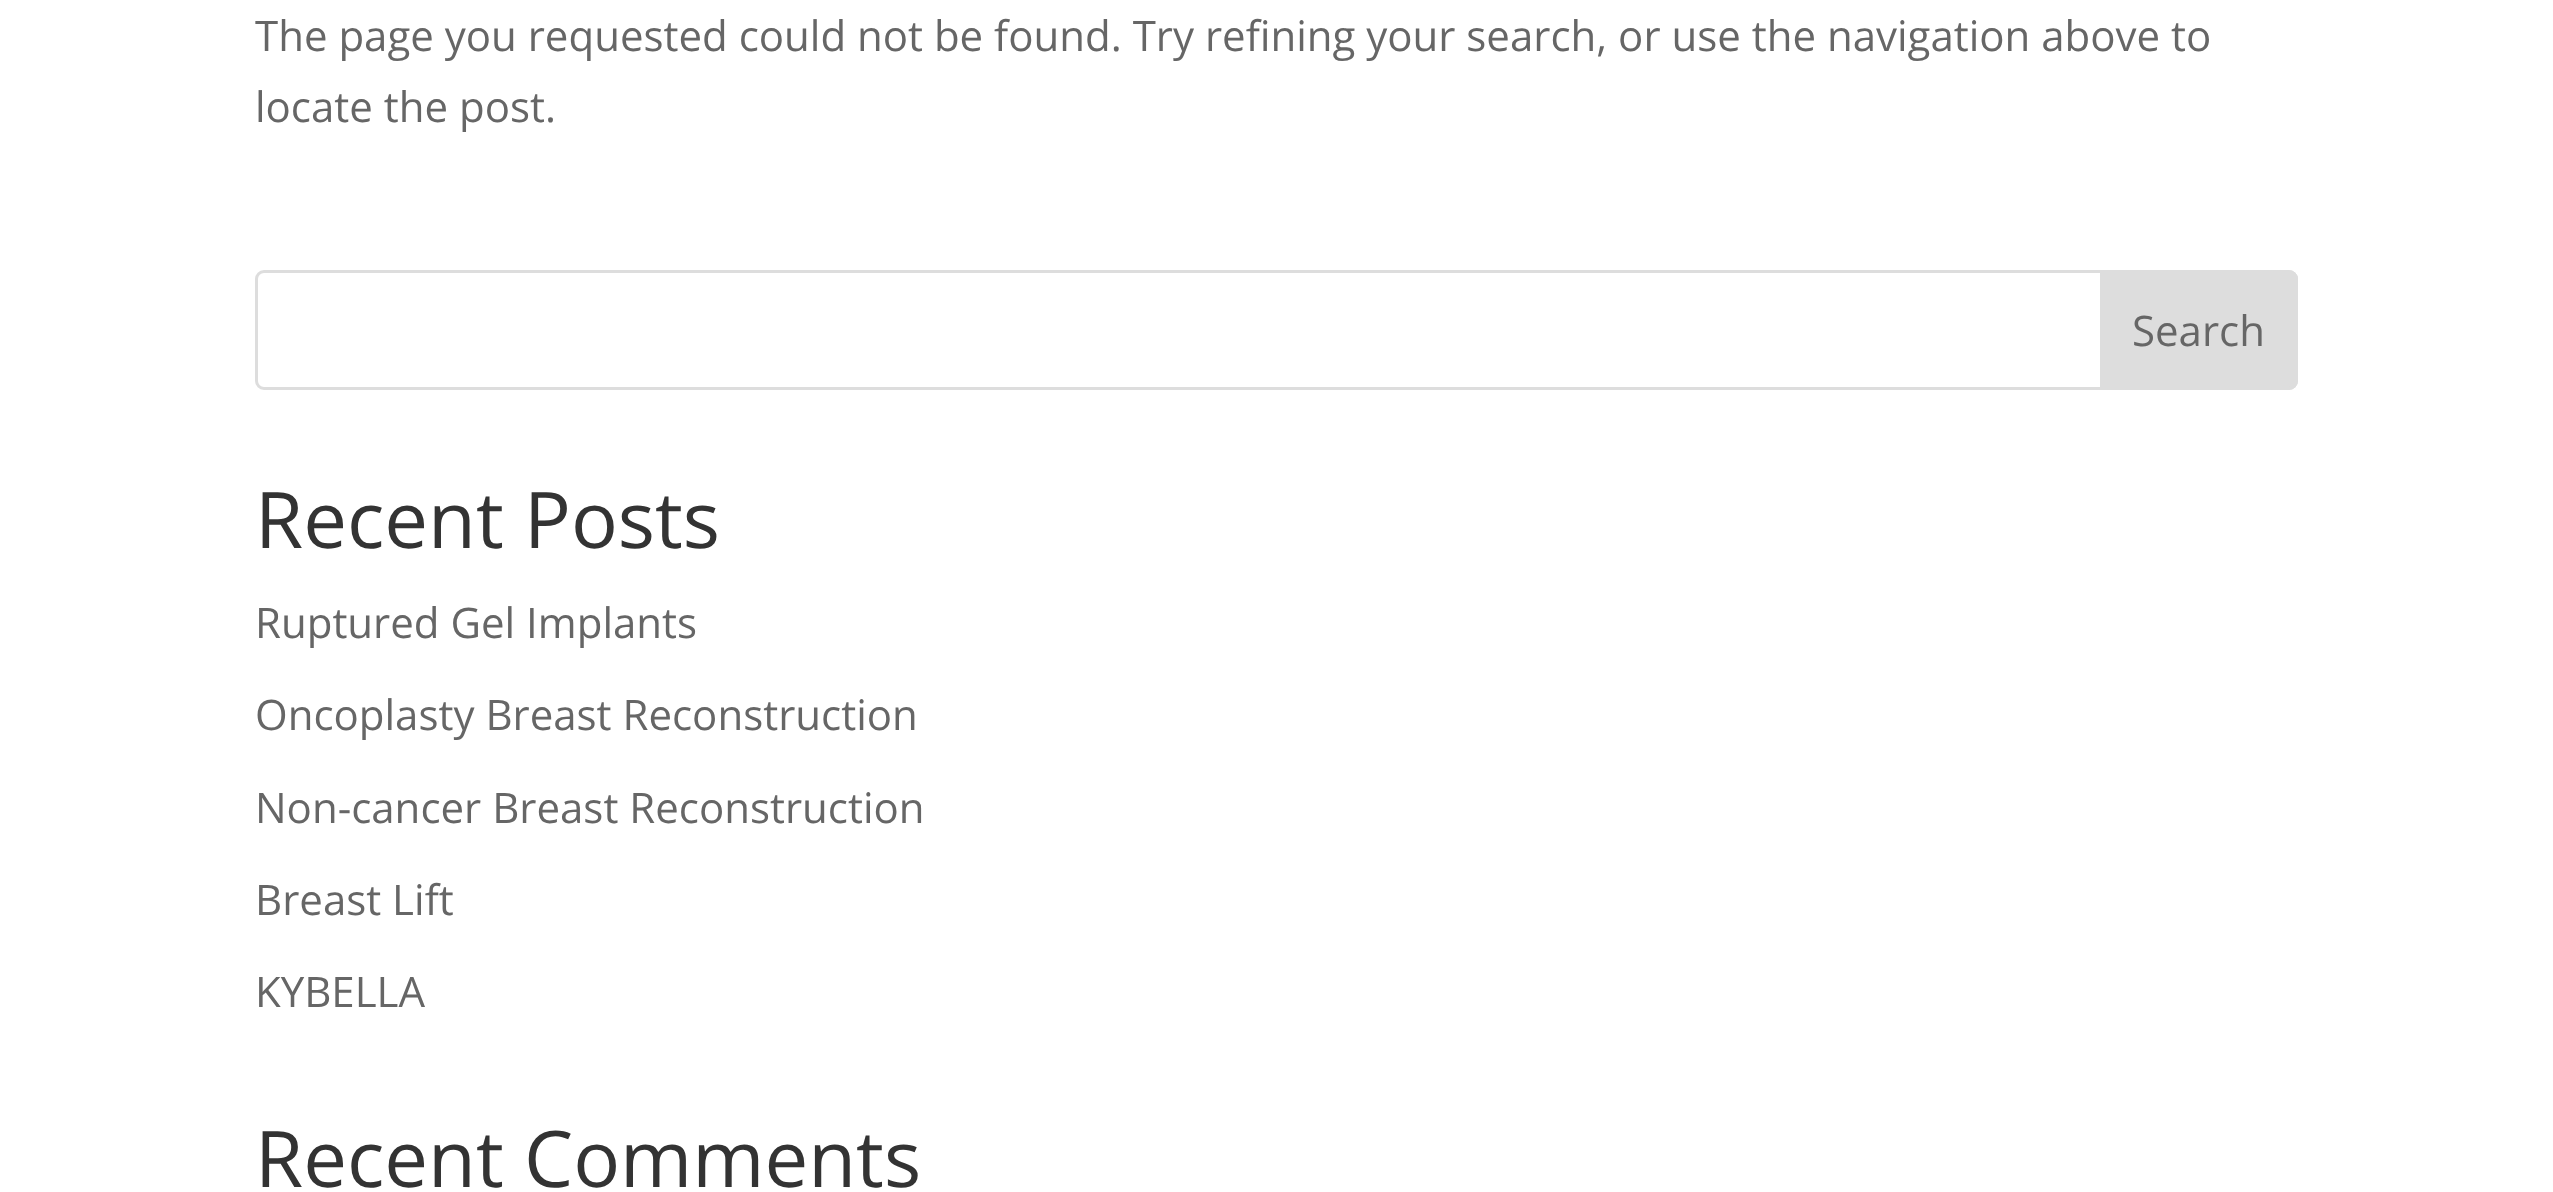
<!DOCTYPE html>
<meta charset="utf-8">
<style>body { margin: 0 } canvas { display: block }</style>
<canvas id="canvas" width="2553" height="1192"></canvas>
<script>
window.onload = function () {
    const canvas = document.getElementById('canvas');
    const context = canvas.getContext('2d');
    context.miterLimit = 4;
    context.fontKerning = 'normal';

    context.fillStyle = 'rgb(255, 255, 255)';
    context.fillRect(0, 0, 2553, 1192);
    context.beginPath();
    context.roundRect(256.5, 271.5, 2040, 117, 7.5);
    context.strokeStyle = 'rgb(221, 221, 221)';
    context.lineWidth = 3;
    context.stroke();
    context.fillStyle = 'rgb(221, 221, 221)';
    context.beginPath();
    context.roundRect(2101.5, 271.5, 195, 117, [0, 7.5, 7.5, 0]);
    context.fill();
    context.stroke();
    context.font = '42px Open Sans';
    context.fillStyle = 'rgb(102, 102, 102)';
    context.fillText('The page you requested could not be found. Try refining your search, or use the navigation above to', 255, 51);
    context.fillText('locate the post.', 255, 122);
    context.fillText('Search', 2132, 346);
    context.font = '78px Open Sans';
    context.fillStyle = 'rgb(51, 51, 51)';
    context.fillText('Recent Posts', 255, 548);
    context.font = '42px Open Sans';
    context.fillStyle = 'rgb(102, 102, 102)';
    context.fillText('Ruptured Gel Implants', 255, 638);
    context.fillText('Oncoplasty Breast Reconstruction', 255, 730);
    context.fillText('Non-cancer Breast Reconstruction', 255, 823);
    context.fillText('Breast Lift', 255, 915);
    context.fillText('KYBELLA', 255, 1007);
    context.font = '78px Open Sans';
    context.fillStyle = 'rgb(51, 51, 51)';
    context.fillText('Recent Comments', 255, 1187);
};
</script>
